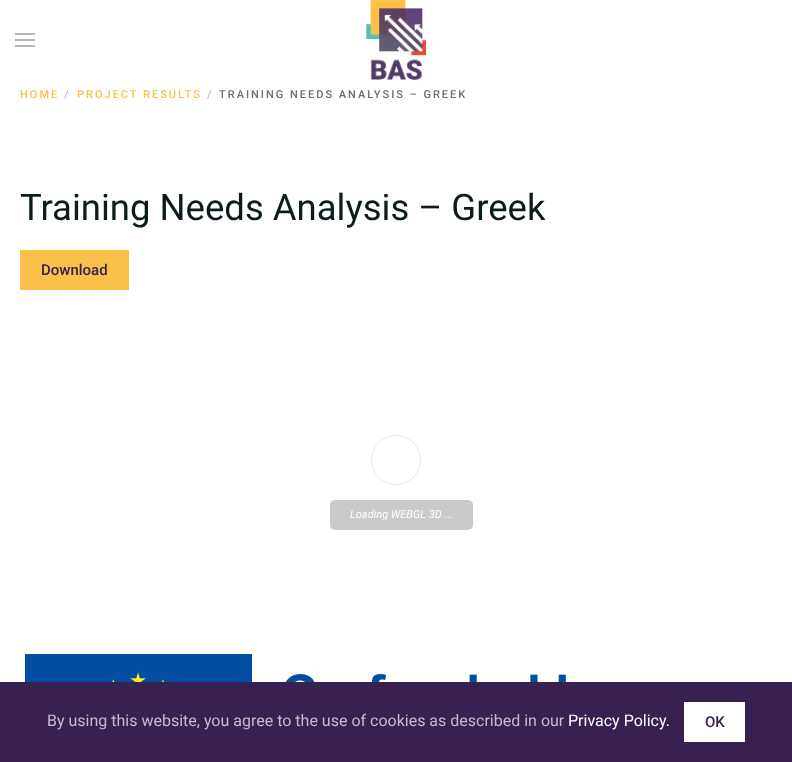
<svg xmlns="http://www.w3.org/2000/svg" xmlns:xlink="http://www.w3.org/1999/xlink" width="792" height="762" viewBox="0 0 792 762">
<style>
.cls-1{font:500 11px Roboto;letter-spacing:2px;fill:#fac047}
.cls-2{font:11px Roboto;fill:#b4b5ba}
.cls-3{font:500 11px Roboto;letter-spacing:2px;fill:#6c6d74}
.cls-4{font:36.5px Roboto;fill:#0c1c1c}
.cls-5{font:500 15px Roboto;fill:#382051}
.cls-6{font:italic 11px Roboto;fill:#ffffff}
.cls-7{font:16px Roboto;fill:#c3bccb}
.cls-8{font:16px Roboto;fill:#ffffff}
</style>
<rect width="100%" height="100%" fill="#ffffff"/>
<rect fill="#b4b5ba" x="15" y="33" width="20" height="2"/>
<rect fill="#b4b5ba" x="15" y="39" width="20" height="2"/>
<rect fill="#b4b5ba" x="15" y="45" width="20" height="2"/>
<image xlink:href="image0.png" x="366" y="0" width="61" height="80"/>
<rect fill="#fac047" x="20" y="250" width="109" height="40"/>
<circle fill="none" stroke="#eaeaea" cx="396" cy="460" r="24.5"/>
<rect fill="#cacaca" x="330" y="500" width="143" height="30" rx="5"/>
<image xlink:href="image1.png" x="25" y="654" width="541" height="28"/>
<rect fill="#382051" x="0" y="682" width="792" height="80"/>
<rect fill="#ffffff" x="684" y="702" width="61" height="40"/>
<text class="cls-1" x="20" y="98">HOME</text>
<text class="cls-2" x="64" y="98">/</text>
<text class="cls-1" x="77" y="98">PROJECT RESULTS</text>
<text class="cls-2" x="207" y="98">/</text>
<text class="cls-3" x="219" y="98">TRAINING NEEDS ANALYSIS – GREEK</text>
<text class="cls-4" x="20" y="220">Training Needs Analysis – Greek</text>
<text class="cls-5" x="41" y="275">Download</text>
<text class="cls-6" x="350" y="518">Loading WEBGL 3D ...</text>
<text class="cls-7" x="47" y="726">By using this website, you agree to the use of cookies as described in our</text>
<text class="cls-8" x="568" y="726">Privacy Policy.</text>
<text class="cls-5" x="705" y="727">OK</text>
</svg>
